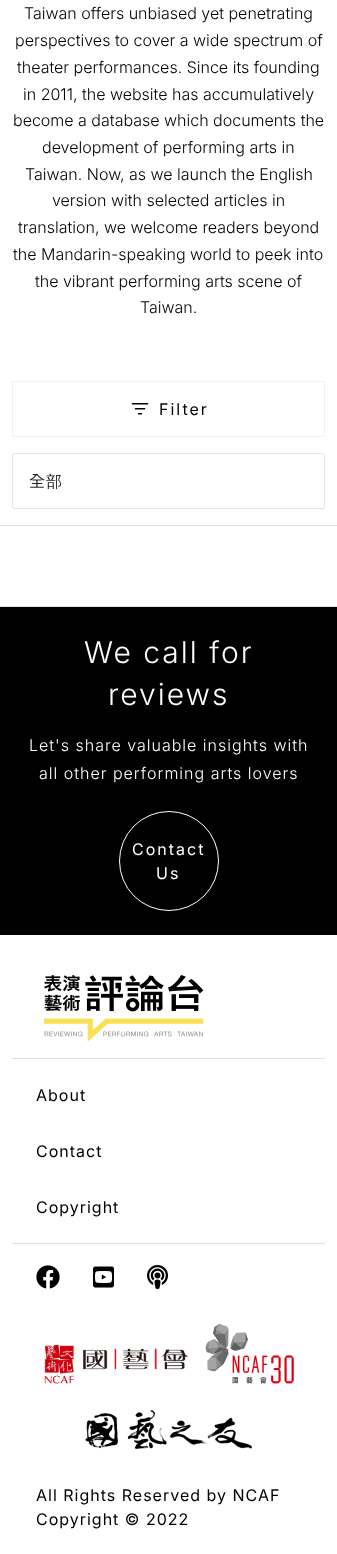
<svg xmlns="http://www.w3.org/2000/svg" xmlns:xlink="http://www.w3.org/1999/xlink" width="337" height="1554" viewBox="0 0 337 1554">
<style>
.cls-1{font:300 16px Inter;fill:#000000}
.cls-2{font:16px Inter;letter-spacing:2px;fill:#000000}
.cls-3{font:16px Noto Sans TC;letter-spacing:1px;fill:#212529}
.cls-4{font:500 16px WenQuanYi Zen Hei;letter-spacing:1px;fill:#212529}
.cls-5{font:300 30px Inter;letter-spacing:2px;fill:#ffffff}
.cls-6{font:300 16px Inter;letter-spacing:1px;fill:#ffffff}
.cls-7{font:16px Inter;letter-spacing:2px;fill:#ffffff}
.cls-8{font:16px Inter;letter-spacing:1px;fill:#000000}
</style>
<rect width="100%" height="100%" fill="#ffffff"/>
<rect fill="none" stroke="#f1f1f1" x="12.5" y="381.5" width="312" height="55"/>
<image xlink:href="image0.png" x="131" y="403" width="18" height="12"/>
<rect fill="none" stroke="#e5e5e5" x="12.5" y="453.5" width="312" height="55" rx="1.5"/>
<rect fill="#e0e0e0" x="0" y="525" width="337" height="1"/>
<rect fill="#e0e0e0" x="0" y="606" width="337" height="1"/>
<rect fill="#000000" x="0" y="607" width="337" height="328"/>
<circle fill="none" stroke="#ffffff" cx="169" cy="861" r="49.5"/>
<image xlink:href="image1.png" x="44" y="975" width="160" height="67"/>
<rect fill="#e0e0e0" x="12" y="1058" width="313" height="1"/>
<rect fill="#e0e0e0" x="12" y="1243" width="313" height="1"/>
<image xlink:href="image2.png" x="36" y="1265" width="24" height="24"/>
<image xlink:href="image3.png" x="93" y="1266" width="21" height="22"/>
<image xlink:href="image4.png" x="147" y="1265" width="21" height="24"/>
<image xlink:href="image5.png" x="44" y="1323" width="250" height="61"/>
<image xlink:href="image6.png" x="85" y="1410" width="167" height="39"/>
<text class="cls-1" x="24" y="19">Taiwan offers unbiased yet penetrating</text>
<text class="cls-1" x="15" y="46">perspectives to cover a wide spectrum of</text>
<text class="cls-1" x="17" y="73">theater performances. Since its founding</text>
<text class="cls-1" x="23" y="100">in 2011, the website has accumulatively</text>
<text class="cls-1" x="13" y="126">become a database which documents the</text>
<text class="cls-1" x="42" y="153">development of performing arts in</text>
<text class="cls-1" x="25" y="180">Taiwan. Now, as we launch the English</text>
<text class="cls-1" x="52" y="206">version with selected articles in</text>
<text class="cls-1" x="18" y="233">translation, we welcome readers beyond</text>
<text class="cls-1" x="13" y="260">the Mandarin-speaking world to peek into</text>
<text class="cls-1" x="35" y="287">the vibrant performing arts scene of</text>
<text class="cls-1" x="140" y="313">Taiwan.</text>
<text class="cls-2" x="159" y="415">Filter</text>
<text class="cls-3" x="29" y="487">全</text>
<text class="cls-4" x="46" y="487">部</text>
<text class="cls-5" x="84" y="663">We call for</text>
<text class="cls-5" x="108" y="705">reviews</text>
<text class="cls-6" x="29" y="751">Let's share valuable insights with</text>
<text class="cls-6" x="39" y="779">all other performing arts lovers</text>
<text class="cls-7" x="132" y="855">Contact</text>
<text class="cls-7" x="156" y="879">Us</text>
<text class="cls-8" x="36" y="1101">About</text>
<text class="cls-8" x="36" y="1157">Contact</text>
<text class="cls-8" x="36" y="1213">Copyright</text>
<text class="cls-8"><tspan x="36" y="1501">All Rights Reserved by NCAF</tspan><tspan x="36" y="1525">Copyright © 2022</tspan></text>
</svg>
